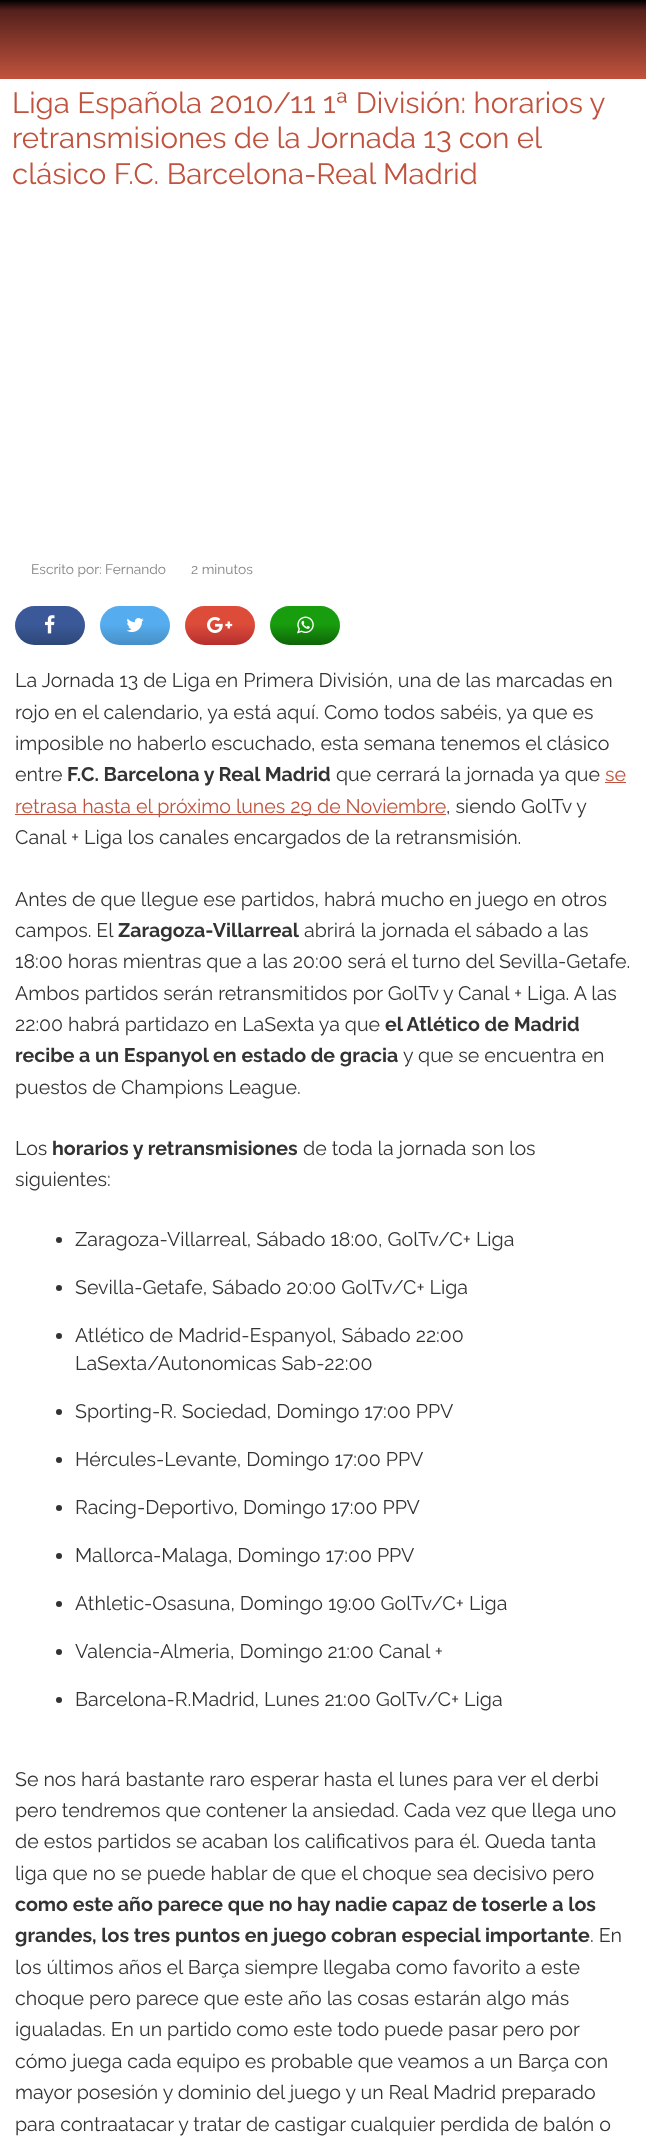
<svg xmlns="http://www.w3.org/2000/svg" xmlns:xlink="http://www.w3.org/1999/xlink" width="646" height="2141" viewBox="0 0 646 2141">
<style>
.cls-1{font:29.4px Raleway;fill:#c1533e}
.cls-2{font:13.75px Raleway;fill:#828282}
.cls-3{font:19.6px Raleway;fill:#333333}
.cls-4{font:bold 19.6px Raleway;fill:#333333}
.cls-5{font:19.6px Raleway;fill:#c1533e}
</style>
<defs>
<linearGradient id="g1" gradientUnits="userSpaceOnUse" x1="323" y1="0" x2="323" y2="79"><stop offset="0" stop-color="#000000"/><stop offset="0.13" stop-color="#54201b"/><stop offset="1" stop-color="#c1533e"/></linearGradient>
<linearGradient id="g2" gradientUnits="userSpaceOnUse" x1="50" y1="606" x2="50" y2="645"><stop offset="0" stop-color="#3b5998"/><stop offset="0.48" stop-color="#3b5998"/><stop offset="1" stop-color="#2e4777"/></linearGradient>
<linearGradient id="g3" gradientUnits="userSpaceOnUse" x1="135" y1="606" x2="135" y2="645"><stop offset="0" stop-color="#55acee"/><stop offset="0.48" stop-color="#55acee"/><stop offset="1" stop-color="#478fc6"/></linearGradient>
<linearGradient id="g4" gradientUnits="userSpaceOnUse" x1="220" y1="606" x2="220" y2="645"><stop offset="0" stop-color="#dd4b39"/><stop offset="0.47" stop-color="#dd4b39"/><stop offset="1" stop-color="#b52f2f"/></linearGradient>
<linearGradient id="g5" gradientUnits="userSpaceOnUse" x1="305" y1="606" x2="305" y2="645"><stop offset="0" stop-color="#189d0e"/><stop offset="0.47" stop-color="#189d0e"/><stop offset="1" stop-color="#0e6308"/></linearGradient>
</defs>
<rect width="100%" height="100%" fill="#ffffff"/>
<rect fill="url(#g1)" x="0" y="0" width="646" height="79"/>
<rect fill="url(#g2)" x="15" y="606" width="70" height="39" rx="19.5"/>
<image xlink:href="image0.png" x="45" y="615" width="10" height="19"/>
<rect fill="url(#g3)" x="100" y="606" width="70" height="39" rx="19.5"/>
<image xlink:href="image1.png" x="126" y="618" width="18" height="14"/>
<rect fill="url(#g4)" x="185" y="606" width="70" height="39" rx="19.5"/>
<image xlink:href="image2.png" x="207" y="617" width="26" height="16"/>
<rect fill="url(#g5)" x="270" y="606" width="70" height="39" rx="19.5"/>
<image xlink:href="image3.png" x="297" y="616" width="17" height="18"/>
<rect fill="#c1533e" x="605" y="782" width="21" height="1"/>
<rect fill="#c1533e" x="15" y="814" width="431" height="1"/>
<circle fill="#333333" cx="59" cy="1240" r="3"/>
<circle fill="#333333" cx="59" cy="1288" r="3"/>
<circle fill="#333333" cx="59" cy="1336" r="3"/>
<circle fill="#333333" cx="59" cy="1412" r="3"/>
<circle fill="#333333" cx="59" cy="1460" r="3"/>
<circle fill="#333333" cx="59" cy="1508" r="3"/>
<circle fill="#333333" cx="59" cy="1556" r="3"/>
<circle fill="#333333" cx="59" cy="1604" r="3"/>
<circle fill="#333333" cx="59" cy="1652" r="3"/>
<circle fill="#333333" cx="59" cy="1700" r="3"/>
<text class="cls-1"><tspan x="12" y="113">Liga Española 2010/11 1ª División: horarios y</tspan><tspan x="12" y="148" word-spacing="-0.25">retransmisiones de la Jornada 13 con el</tspan><tspan x="12" y="184">clásico F.C. Barcelona-Real Madrid</tspan></text>
<text class="cls-2" x="31" y="574">Escrito por: Fernando</text>
<text class="cls-2" x="191" y="574">2 minutos</text>
<text class="cls-3"><tspan x="15" y="687">La Jornada 13 de Liga en Primera División, una de las marcadas en</tspan><tspan x="15" y="719">rojo en el calendario, ya está aquí. Como todos sabéis, ya que es</tspan><tspan x="15" y="750">imposible no haberlo escuchado, esta semana tenemos el clásico</tspan><tspan x="15" y="781">entre</tspan></text>
<text class="cls-4" x="67" y="781">F.C. Barcelona y Real Madrid</text>
<text class="cls-3" x="336" y="781">que cerrará la jornada ya que</text>
<text class="cls-5" x="605" y="781">se</text>
<text class="cls-5" x="15" y="813">retrasa hasta el próximo lunes 29 de Noviembre</text>
<text class="cls-3" x="446" y="813">, siendo GolTv y</text>
<text class="cls-3" x="15" y="844">Canal + Liga los canales encargados de la retransmisión.</text>
<text class="cls-3"><tspan x="15" y="906">Antes de que llegue ese partidos, habrá mucho en juego en otros</tspan><tspan x="15" y="937">campos. El</tspan></text>
<text class="cls-4" x="118" y="937">Zaragoza-Villarreal</text>
<text class="cls-3" x="304" y="937">abrirá la jornada el sábado a las</text>
<text class="cls-3"><tspan x="15" y="968">18:00 horas mientras que a las 20:00 será el turno del Sevilla-Getafe.</tspan><tspan x="15" y="1000">Ambos partidos serán retransmitidos por GolTv y Canal + Liga. A las</tspan><tspan x="15" y="1031">22:00 habrá partidazo en LaSexta ya que</tspan></text>
<text class="cls-4" x="385" y="1031">el Atlético de Madrid</text>
<text class="cls-4" x="15" y="1062">recibe a un Espanyol en estado de gracia</text>
<text class="cls-3" x="403" y="1062">y que se encuentra en</text>
<text class="cls-3" x="15" y="1094">puestos de Champions League.</text>
<text class="cls-3" x="15" y="1155">Los</text>
<text class="cls-4" x="52" y="1155">horarios y retransmisiones</text>
<text class="cls-3" x="303" y="1155">de toda la jornada son los</text>
<text class="cls-3" x="15" y="1186">siguientes:</text>
<text class="cls-3" x="75" y="1246">Zaragoza-Villarreal, Sábado 18:00, GolTv/C+ Liga</text>
<text class="cls-3" x="75" y="1294">Sevilla-Getafe, Sábado 20:00 GolTv/C+ Liga</text>
<text class="cls-3"><tspan x="75" y="1342">Atlético de Madrid-Espanyol, Sábado 22:00</tspan><tspan x="75" y="1370">LaSexta/Autonomicas Sab-22:00</tspan></text>
<text class="cls-3" x="75" y="1418">Sporting-R. Sociedad, Domingo 17:00 PPV</text>
<text class="cls-3" x="75" y="1466">Hércules-Levante, Domingo 17:00 PPV</text>
<text class="cls-3" x="75" y="1514">Racing-Deportivo, Domingo 17:00 PPV</text>
<text class="cls-3" x="75" y="1562">Mallorca-Malaga, Domingo 17:00 PPV</text>
<text class="cls-3" x="75" y="1610">Athletic-Osasuna, Domingo 19:00 GolTv/C+ Liga</text>
<text class="cls-3" x="75" y="1658">Valencia-Almeria, Domingo 21:00 Canal +</text>
<text class="cls-3" x="75" y="1706">Barcelona-R.Madrid, Lunes 21:00 GolTv/C+ Liga</text>
<text class="cls-3"><tspan x="15" y="1786">Se nos hará bastante raro esperar hasta el lunes para ver el derbi</tspan><tspan x="15" y="1817">pero tendremos que contener la ansiedad. Cada vez que llega uno</tspan><tspan x="15" y="1848">de estos partidos se acaban los calificativos para él. Queda tanta</tspan><tspan x="15" y="1880">liga que no se puede hablar de que el choque sea decisivo pero</tspan></text>
<text class="cls-4"><tspan x="15" y="1911">como este año parece que no hay nadie capaz de toserle a los</tspan><tspan x="15" y="1942">grandes, los tres puntos en juego cobran especial importante</tspan></text>
<text class="cls-3" x="590" y="1942">. En</text>
<text class="cls-3"><tspan x="15" y="1974">los últimos años el Barça siempre llegaba como favorito a este</tspan><tspan x="15" y="2005">choque pero parece que este año las cosas estarán algo más</tspan><tspan x="15" y="2036">igualadas. En un partido como este todo puede pasar pero por</tspan><tspan x="15" y="2068">cómo juega cada equipo es probable que veamos a un Barça con</tspan><tspan x="15" y="2099">mayor posesión y dominio del juego y un Real Madrid preparado</tspan><tspan x="15" y="2131">para contraatacar y tratar de castigar cualquier perdida de balón o</tspan></text>
</svg>
